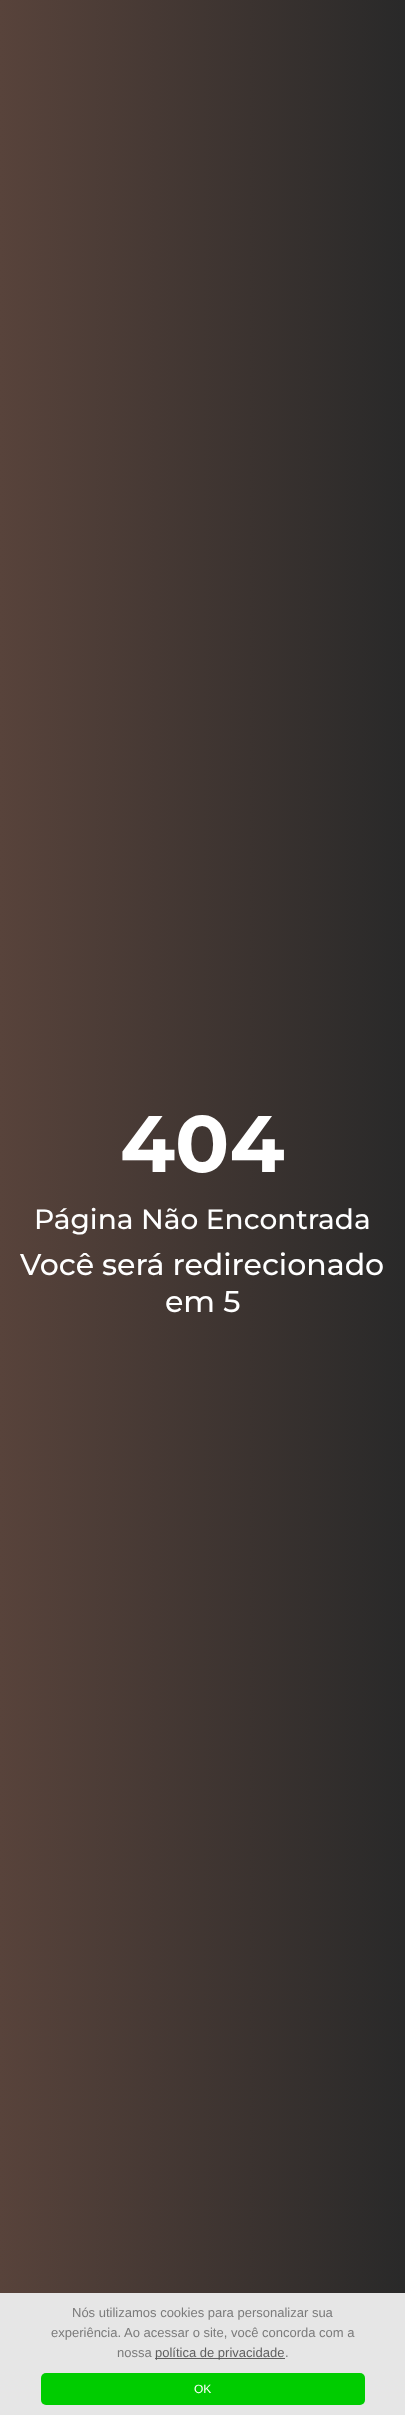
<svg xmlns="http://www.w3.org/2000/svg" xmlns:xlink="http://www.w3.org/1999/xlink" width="405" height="2415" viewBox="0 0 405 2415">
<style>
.cls-1{font:bold 80px Montserrat;fill:#ffffff}
.cls-2{font:500 28px Montserrat;fill:#ffffff}
.cls-3{font:500 30px Montserrat;fill:#ffffff}
.cls-4{font:13px Liberation Sans;fill:#7b7b7b}
.cls-5{font:13px Liberation Sans;fill:#5f5f5f}
.cls-6{font:12px Liberation Sans;fill:#ffffff}
</style>
<defs>
<linearGradient id="g1" gradientUnits="userSpaceOnUse" x1="0" y1="1208" x2="405" y2="1208"><stop offset="0" stop-color="#58433b"/><stop offset="1" stop-color="#292929"/></linearGradient>
</defs>
<rect width="100%" height="100%" fill="#ffffff"/>
<rect fill="url(#g1)" x="0" y="0" width="405" height="2293"/>
<rect fill="#e6e6e6" x="0" y="2293" width="405" height="122"/>
<rect fill="#5f5f5f" x="155" y="2358" width="130" height="1"/>
<rect fill="#00cc00" x="41" y="2373" width="324" height="32" rx="5"/>
<text class="cls-1" x="120" y="1172">404</text>
<text class="cls-2" x="34" y="1229">Página Não Encontrada</text>
<text class="cls-3" x="20" y="1275">Você será redirecionado</text>
<text class="cls-3" x="165" y="1312">em 5</text>
<text class="cls-4" x="72" y="2317">Nós utilizamos cookies para personalizar sua</text>
<text class="cls-4" x="51" y="2337">experiência. Ao acessar o site, você concorda com a</text>
<text class="cls-4" x="117" y="2357">nossa</text>
<text class="cls-5" x="155" y="2357">política de privacidade</text>
<text class="cls-4" x="285" y="2357">.</text>
<text class="cls-6" x="194" y="2393">OK</text>
</svg>
